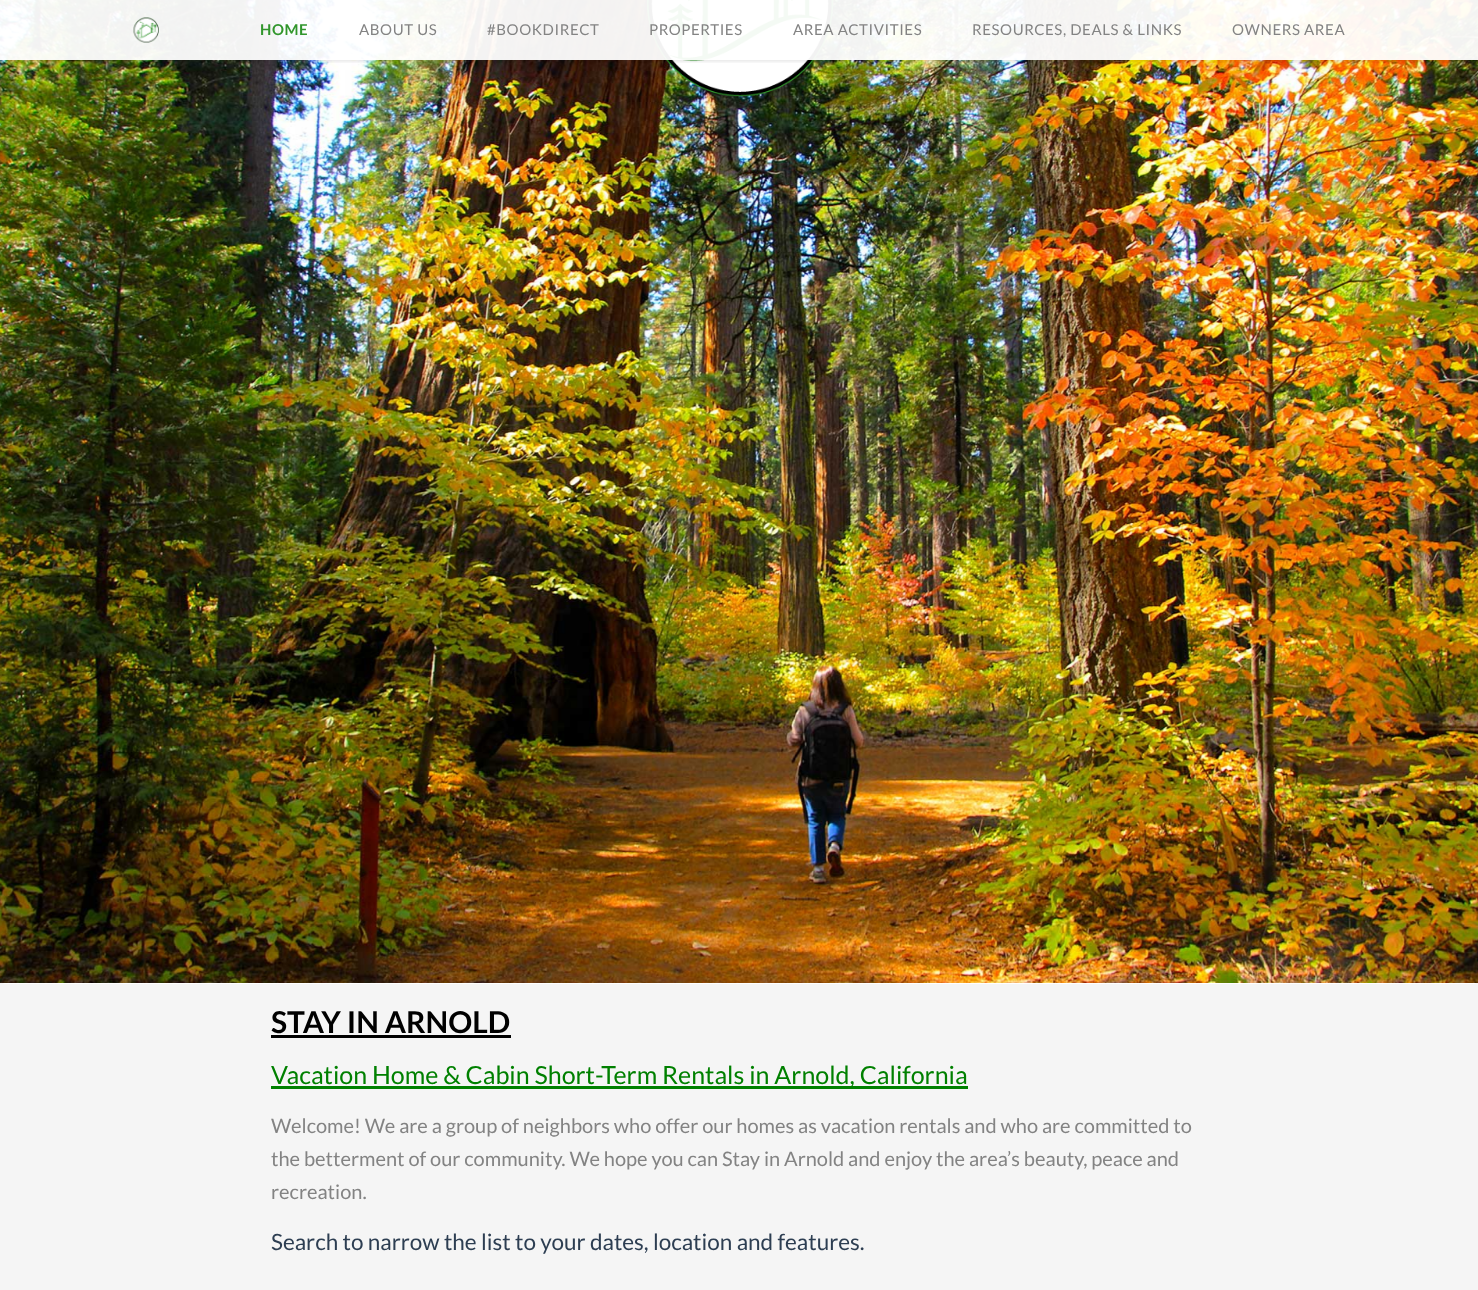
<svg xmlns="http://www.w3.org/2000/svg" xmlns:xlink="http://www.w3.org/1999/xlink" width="1478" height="1290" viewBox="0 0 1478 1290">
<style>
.cls-1{font:bold 15px Lato;letter-spacing:0.6px;fill:#31962c}
.cls-2{font:15px Lato;letter-spacing:0.6px;fill:#838383}
.cls-3{font:bold 30px Lato;fill:#000000}
.cls-4{font:25px Lato;fill:#008000}
.cls-5{font:20px Lato;fill:#838383}
.cls-6{font:22.5px Lato;fill:#2d3e52}
</style>
<defs>
<clipPath id="clip1"><rect x="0" y="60" width="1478" height="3"/></clipPath>
</defs>
<rect width="100%" height="100%" fill="#f5f5f5"/>
<rect fill="#ffffff" x="0" y="-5" width="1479" height="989" rx="5"/>
<image xlink:href="image2.png" x="0" y="0" width="1478" height="983"/>
<image xlink:href="image1.png" x="647" y="0" width="186" height="97"/>
<g clip-path="url(#clip1)">
<rect fill="#000000" fill-opacity="0.12" filter="blur(2px)" x="0" y="1" width="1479" height="60"/>
</g>
<rect fill="#ffffff" fill-opacity="0.95" x="0" y="0" width="1478" height="60"/>
<image xlink:href="image0.png" x="133" y="17" width="26" height="26"/>
<rect fill="#000000" x="271" y="1035" width="240" height="3"/>
<rect fill="#008000" x="271" y="1086" width="697" height="3"/>
<text class="cls-1" x="260" y="35">HOME</text>
<text class="cls-2" x="359" y="35">ABOUT US</text>
<text class="cls-2" x="487" y="35">#BOOKDIRECT</text>
<text class="cls-2" x="649" y="35">PROPERTIES</text>
<text class="cls-2" x="793" y="35">AREA ACTIVITIES</text>
<text class="cls-2" x="972" y="35">RESOURCES, DEALS &amp; LINKS</text>
<text class="cls-2" x="1232" y="35">OWNERS AREA</text>
<text class="cls-3" x="271" y="1033">STAY IN ARNOLD</text>
<text class="cls-4" x="271" y="1084">Vacation Home &amp; Cabin Short-Term Rentals in Arnold, California</text>
<text class="cls-5"><tspan x="271" y="1133">Welcome! We are a group of neighbors who offer our homes as vacation rentals and who are committed to</tspan><tspan x="271" y="1166">the betterment of our community. We hope you can Stay in Arnold and enjoy the area’s beauty, peace and</tspan><tspan x="271" y="1199">recreation.</tspan></text>
<text class="cls-6" x="271" y="1250">Search to narrow the list to your dates, location and features.</text>
</svg>
